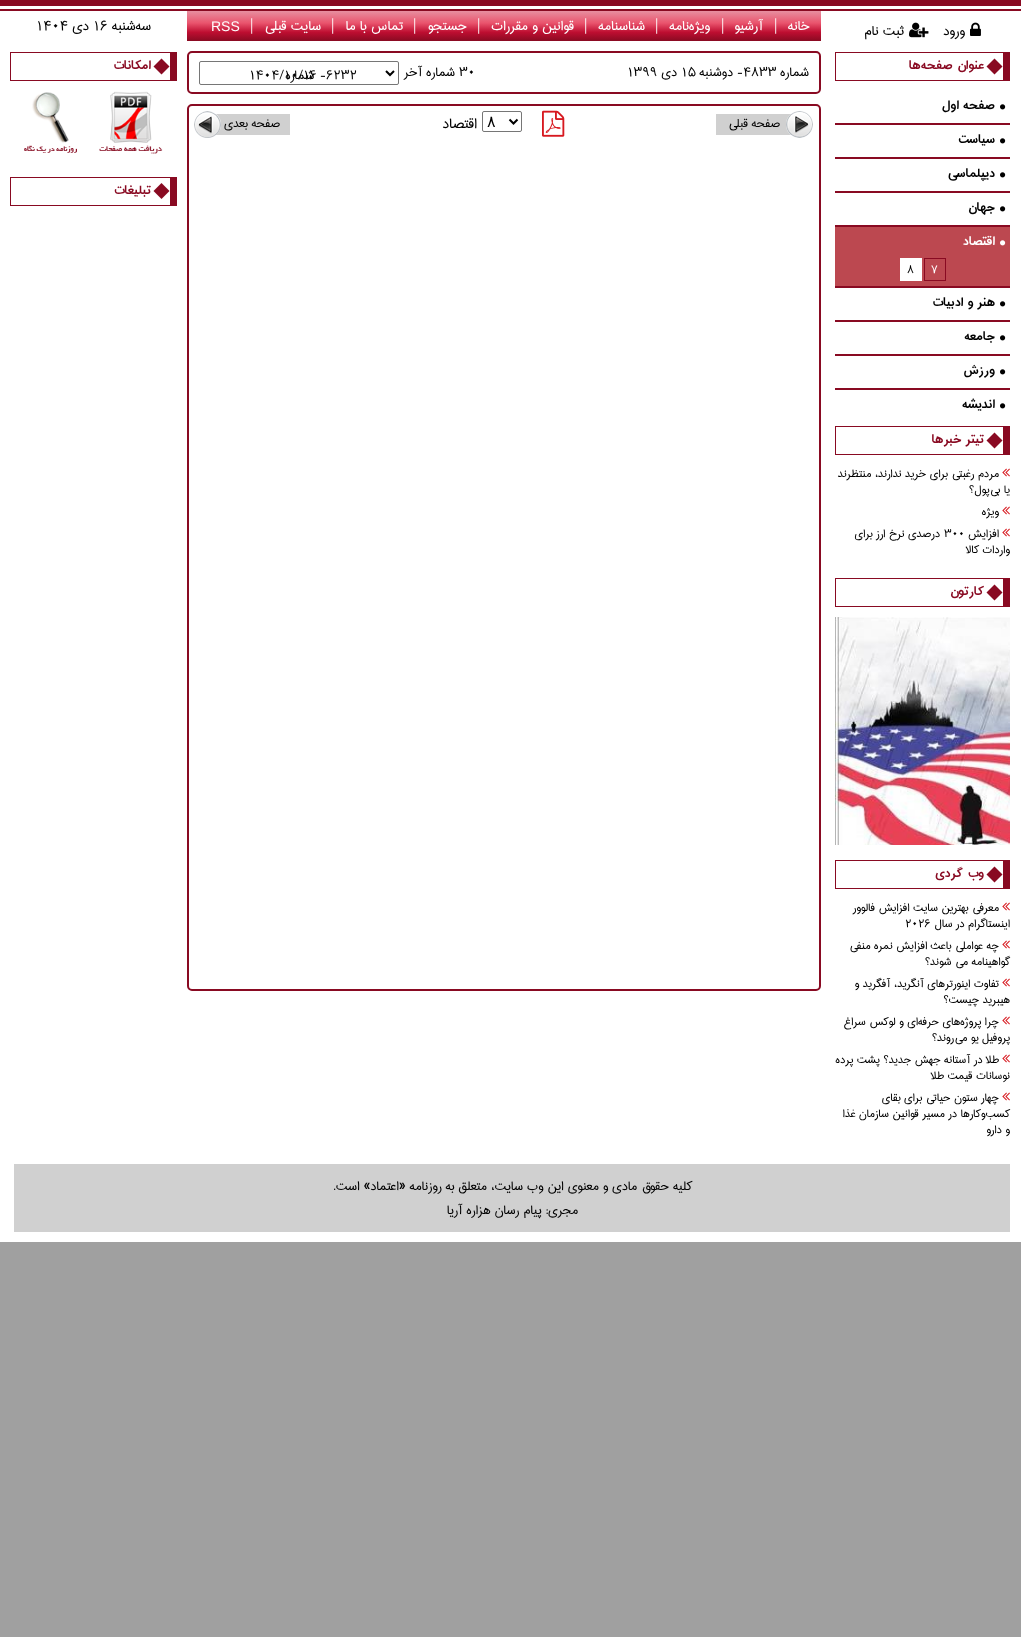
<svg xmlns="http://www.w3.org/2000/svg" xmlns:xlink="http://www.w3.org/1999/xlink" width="1021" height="1637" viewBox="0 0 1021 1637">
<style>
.cls-1{font:17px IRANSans;direction:rtl;fill:#000000}
.cls-2{font:bold 15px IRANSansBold;direction:rtl;fill:#890a22}
.cls-3{font:bold 15px IRANSansBold;direction:rtl;fill:#000000}
.cls-4{font:bold 15px IRANSansBold;direction:rtl;fill:#ffffff}
.cls-5{font:14px IRANSans;fill:#ffffff}
.cls-6{font:14px IRANSans;fill:#000000}
.cls-7{font:14px IRANSans;direction:rtl;fill:#000000}
.cls-8{font:17px IRANSans;direction:rtl;fill:#ffffff}
.cls-9{font:17px Liberation Serif;fill:#ffffff}
.cls-10{font:14px Liberation Sans;fill:#ffffff}
.cls-11{font:16px IRANSans;direction:rtl;fill:#000000}
.cls-12{font:16px IRANSans;fill:#000000}
.cls-13{font:15px IRANSans;direction:rtl;fill:#000000}
.cls-14{font:16px DejaVu Sans;fill:#000000}
.cls-15{font:18px IRANSans;direction:rtl;fill:#000000}
.cls-16{font:17px IRANSans;fill:#000000}
</style>
<defs>
<linearGradient id="g1" gradientUnits="userSpaceOnUse" x1="504" y1="11" x2="504" y2="41"><stop offset="0" stop-color="#e78fa0"/><stop offset="0.4" stop-color="#ea546d"/><stop offset="0.71" stop-color="#be0e31"/><stop offset="1" stop-color="#890a22"/></linearGradient>
</defs>
<rect width="100%" height="100%" fill="#a0a0a0"/>
<rect fill="#ffffff" x="0" y="6" width="1021" height="1236"/>
<rect fill="#890a22" x="0" y="0" width="1021" height="6"/>
<rect fill="#890a22" x="0" y="9" width="1021" height="2"/>
<image xlink:href="image0.png" x="970" y="22" width="11" height="14"/>
<image xlink:href="image1.png" x="909" y="22" width="20" height="16"/>
<rect fill="#890a22" x="835" y="52" width="175" height="1"/>
<rect fill="#890a22" x="1003" y="52" width="7" height="29"/>
<rect fill="#890a22" x="835" y="80" width="175" height="1"/>
<rect fill="#890a22" x="835" y="52" width="1" height="29"/>
<path fill="#890a22" d="M994.5 58.5L1002.5 66.5L994.5 74.5L986.5 66.5Z"/>
<rect fill="#890a22" x="835" y="123" width="175" height="2"/>
<image xlink:href="image2.png" x="1000" y="104" width="6" height="6"/>
<rect fill="#890a22" x="835" y="157" width="175" height="2"/>
<image xlink:href="image2.png" x="1000" y="138" width="6" height="6"/>
<rect fill="#890a22" x="835" y="191" width="175" height="2"/>
<image xlink:href="image2.png" x="1000" y="172" width="6" height="6"/>
<rect fill="#890a22" x="835" y="225" width="175" height="2"/>
<image xlink:href="image2.png" x="1000" y="206" width="6" height="6"/>
<rect fill="#bc4850" x="835" y="227" width="175" height="59"/>
<rect fill="#890a22" x="835" y="286" width="175" height="2"/>
<image xlink:href="image3.png" x="1000" y="240" width="6" height="6"/>
<rect fill="none" stroke="#890a22" x="924.5" y="258.5" width="21" height="22"/>
<rect fill="#ffffff" x="900" y="258" width="22" height="23"/>
<rect fill="#890a22" x="835" y="320" width="175" height="2"/>
<image xlink:href="image2.png" x="1000" y="301" width="6" height="6"/>
<rect fill="#890a22" x="835" y="354" width="175" height="2"/>
<image xlink:href="image2.png" x="1000" y="335" width="6" height="6"/>
<rect fill="#890a22" x="835" y="388" width="175" height="2"/>
<image xlink:href="image2.png" x="1000" y="369" width="6" height="6"/>
<image xlink:href="image2.png" x="1000" y="403" width="6" height="6"/>
<rect fill="#890a22" x="835" y="426" width="175" height="1"/>
<rect fill="#890a22" x="1003" y="426" width="7" height="29"/>
<rect fill="#890a22" x="835" y="454" width="175" height="1"/>
<rect fill="#890a22" x="835" y="426" width="1" height="29"/>
<path fill="#890a22" d="M994.5 432.5L1002.5 440.5L994.5 448.5L986.5 440.5Z"/>
<image xlink:href="image4.png" x="1002" y="468" width="8" height="9"/>
<image xlink:href="image4.png" x="1002" y="506" width="8" height="9"/>
<image xlink:href="image4.png" x="1002" y="528" width="8" height="9"/>
<rect fill="#890a22" x="835" y="578" width="175" height="1"/>
<rect fill="#890a22" x="1003" y="578" width="7" height="29"/>
<rect fill="#890a22" x="835" y="606" width="175" height="1"/>
<rect fill="#890a22" x="835" y="578" width="1" height="29"/>
<path fill="#890a22" d="M994.5 584.5L1002.5 592.5L994.5 600.5L986.5 592.5Z"/>
<image xlink:href="image5.png" x="835" y="617" width="175" height="228"/>
<rect fill="#890a22" x="835" y="860" width="175" height="1"/>
<rect fill="#890a22" x="1003" y="860" width="7" height="29"/>
<rect fill="#890a22" x="835" y="888" width="175" height="1"/>
<rect fill="#890a22" x="835" y="860" width="1" height="29"/>
<path fill="#890a22" d="M994.5 866.5L1002.5 874.5L994.5 882.5L986.5 874.5Z"/>
<image xlink:href="image4.png" x="1002" y="902" width="8" height="9"/>
<image xlink:href="image4.png" x="1002" y="940" width="8" height="9"/>
<image xlink:href="image4.png" x="1002" y="978" width="8" height="9"/>
<image xlink:href="image4.png" x="1002" y="1016" width="8" height="9"/>
<image xlink:href="image4.png" x="1002" y="1054" width="8" height="9"/>
<image xlink:href="image4.png" x="1002" y="1092" width="8" height="9"/>
<rect fill="url(#g1)" x="187" y="11" width="634" height="30"/>
<rect fill="none" stroke="#890a22" stroke-width="2" x="188" y="52" width="632" height="41" rx="4"/>
<rect fill="none" stroke="#767676" x="199.5" y="61.5" width="199" height="23" rx="1.5"/>
<path fill="none" stroke="#000000" stroke-width="2" d="M386 71L390 75L394 71"/>
<rect fill="none" stroke="#890a22" stroke-width="2" x="188" y="105" width="632" height="885" rx="4"/>
<rect fill="#d0d0d0" x="716" y="114" width="75" height="21"/>
<image xlink:href="image6.png" x="786" y="111" width="27" height="27"/>
<image xlink:href="image7.png" x="542" y="110" width="23" height="27"/>
<rect fill="none" stroke="#767676" x="482.5" y="111.5" width="39" height="20" rx="1.5"/>
<path fill="none" stroke="#000000" stroke-width="2" d="M509.5 119.5L513.5 123.5L517.5 119.5"/>
<rect fill="#d0d0d0" x="216" y="114" width="74" height="21"/>
<image xlink:href="image8.png" x="194" y="111" width="27" height="27"/>
<rect fill="#890a22" x="10" y="52" width="167" height="1"/>
<rect fill="#890a22" x="170" y="52" width="7" height="29"/>
<rect fill="#890a22" x="10" y="80" width="167" height="1"/>
<rect fill="#890a22" x="10" y="52" width="1" height="29"/>
<path fill="#890a22" d="M161.5 58.5L169.5 66.5L161.5 74.5L153.5 66.5Z"/>
<image xlink:href="image9.png" x="99" y="91" width="64" height="63"/>
<image xlink:href="image10.png" x="24" y="92" width="53" height="61"/>
<rect fill="#890a22" x="10" y="177" width="167" height="1"/>
<rect fill="#890a22" x="170" y="177" width="7" height="29"/>
<rect fill="#890a22" x="10" y="205" width="167" height="1"/>
<rect fill="#890a22" x="10" y="177" width="1" height="29"/>
<path fill="#890a22" d="M161.5 183L169.5 191L161.5 199L153.5 191Z"/>
<rect fill="#d0d0d0" x="14" y="1164" width="996" height="68"/>
<text class="cls-1" x="965" y="35">ورود</text>
<text class="cls-1" x="904" y="35">ثبت نام</text>
<text class="cls-2" x="984" y="69">عنوان صفحه‌ها</text>
<text class="cls-3" x="995" y="109">صفحه اول</text>
<text class="cls-3" x="995" y="143">سیاست</text>
<text class="cls-3" x="995" y="177">دیپلماسی</text>
<text class="cls-3" x="995" y="211">جهان</text>
<text class="cls-4" x="995" y="245">اقتصاد</text>
<text class="cls-5" x="931" y="273">7</text>
<text class="cls-6" x="907" y="273">8</text>
<text class="cls-3" x="995" y="306">هنر و ادبيات</text>
<text class="cls-3" x="995" y="340">جامعه</text>
<text class="cls-3" x="995" y="374">ورزش</text>
<text class="cls-3" x="995" y="408">انديشه</text>
<text class="cls-2" x="984" y="443">تیتر خبرها</text>
<text class="cls-7" x="999" y="477">مردم رغبتي براي خريد ندارند، منتظرند</text>
<text class="cls-7" x="1010" y="493">يا بي‌پول؟</text>
<text class="cls-7"><tspan x="999" y="515">ويژه</tspan><tspan x="999" y="537">افزايش</tspan></text>
<text class="cls-6" x="944" y="537">300</text>
<text class="cls-7" x="940" y="537">درصدي نرخ ارز براي</text>
<text class="cls-7" x="1010" y="553">واردات كالا</text>
<text class="cls-2" x="984" y="595">کارتون</text>
<text class="cls-2" x="984" y="877">وب گردی</text>
<text class="cls-7" x="999" y="911">معرفی بهترین سایت افزایش فالوور</text>
<text class="cls-7" x="1010" y="927">اینستاگرام در سال</text>
<text class="cls-6" x="905" y="927">2026</text>
<text class="cls-7" x="999" y="949">چه عواملی باعث افزایش نمره منفی</text>
<text class="cls-7" x="1010" y="965">گواهینامه می شوند؟</text>
<text class="cls-7" x="999" y="987">تفاوت اینورترهای آنگرید، آفگرید و</text>
<text class="cls-7" x="1010" y="1003">هیبرید چیست؟</text>
<text class="cls-7" x="999" y="1025">چرا پروژه‌های حرفه‌ای و لوکس سراغ</text>
<text class="cls-7" x="1010" y="1041">پروفیل یو می‌روند؟</text>
<text class="cls-7" x="999" y="1063">طلا در آستانه جهش جدید؟ پشت پرده</text>
<text class="cls-7" x="1010" y="1079">نوسانات قیمت طلا</text>
<text class="cls-7" x="999" y="1101">چهار ستون حیاتی برای بقای</text>
<text class="cls-7"><tspan x="1010" y="1117">کسب‌وکارها در مسیر قوانین سازمان غذا</tspan><tspan x="1010" y="1133">و دارو</tspan></text>
<text class="cls-8" x="810" y="30">خانه</text>
<text class="cls-9" x="774" y="30">|</text>
<text class="cls-8" x="763" y="30">آرشیو</text>
<text class="cls-9" x="721" y="30">|</text>
<text class="cls-8" x="710" y="30">ویژه‌نامه</text>
<text class="cls-9" x="655" y="30">|</text>
<text class="cls-8" x="645" y="30">شناسنامه</text>
<text class="cls-9" x="584" y="30">|</text>
<text class="cls-8" x="574" y="30">قوانین و مقررات</text>
<text class="cls-9" x="477" y="30">|</text>
<text class="cls-8" x="467" y="30">جستجو</text>
<text class="cls-9" x="413" y="30">|</text>
<text class="cls-8" x="403" y="30">تماس با ما</text>
<text class="cls-9" x="331" y="30">|</text>
<text class="cls-8" x="321" y="30">سایت قبلی</text>
<text class="cls-9" x="250" y="30">|</text>
<text class="cls-10" x="211" y="31">RSS</text>
<text class="cls-11" x="809" y="76">شماره</text>
<text class="cls-12" x="737" y="76">-4833</text>
<text class="cls-11" x="733" y="76">دوشنبه</text>
<text class="cls-12" x="681" y="76">15</text>
<text class="cls-11" x="677" y="76">دي</text>
<text class="cls-12" x="627" y="76">1399</text>
<text class="cls-12" x="459" y="76">30</text>
<text class="cls-11" x="455" y="76">شماره آخر</text>
<text class="cls-12" x="326" y="79">6232</text>
<text class="cls-12" x="249" y="79">1404/10/16</text>
<text class="cls-11" x="326" y="79" word-spacing="2">- شماره</text>
<text class="cls-13" x="780" y="127">صفحه قبلی</text>
<text class="cls-14" x="487" y="127">۸</text>
<text class="cls-15" x="477" y="128">اقتصاد</text>
<text class="cls-13" x="280" y="127">صفحه بعدی</text>
<text class="cls-1" x="151" y="30">سه‌شنبه</text>
<text class="cls-16" x="93" y="30">16</text>
<text class="cls-1" x="89" y="30">دي</text>
<text class="cls-16" x="36" y="30">1404</text>
<text class="cls-2" x="151" y="69">امکانات</text>
<text class="cls-2" x="151" y="194">تبلیغات</text>
<text class="cls-11" x="692" y="1190">كلیه حقوق مادی و معنوی این وب سایت، متعلق به روزنامه «اعتماد» است.</text>
<text class="cls-11" x="578" y="1214">مجری: پیام رسان هزاره آریا</text>
</svg>
